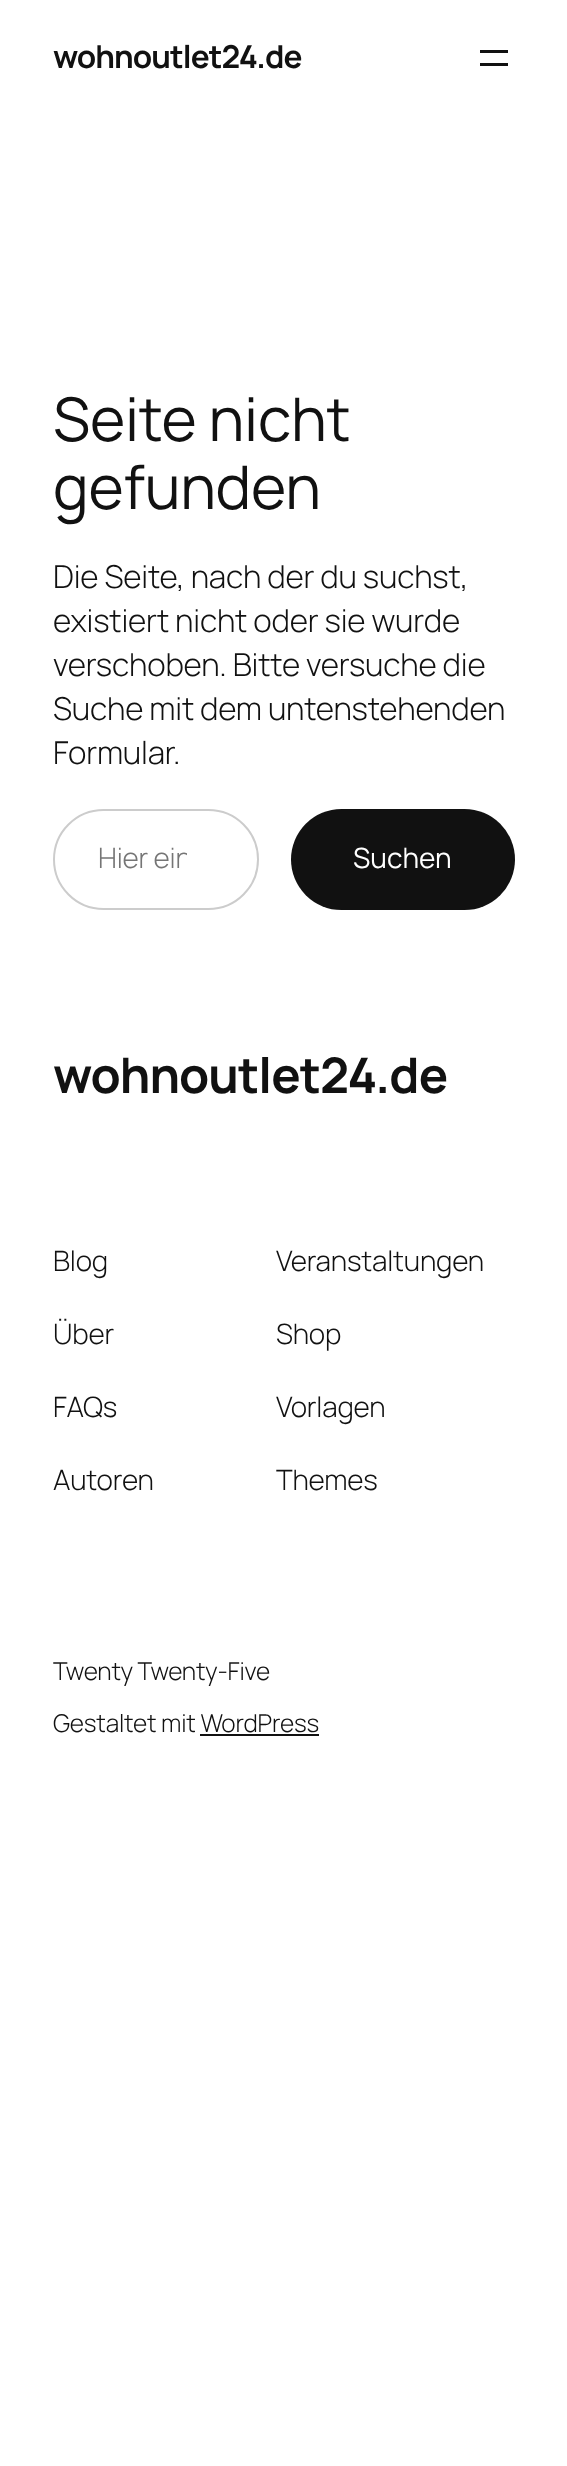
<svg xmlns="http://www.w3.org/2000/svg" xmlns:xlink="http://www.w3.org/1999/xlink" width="567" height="2466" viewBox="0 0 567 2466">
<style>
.cls-1{font:bold 31.5px Manrope;letter-spacing:-0.9px;fill:#111111}
.cls-2{font:60.25px Manrope;letter-spacing:-0.2px;fill:#111111}
.cls-3{font:300 31.5px Manrope;letter-spacing:-0.2px;fill:#111111}
.cls-4{font:300 28px Manrope;letter-spacing:-0.2px;fill:#757575}
.cls-5{font:28px Manrope;fill:#ffffff}
.cls-6{font:bold 49px Manrope;letter-spacing:-0.9px;fill:#111111}
.cls-7{font:300 28px Manrope;letter-spacing:-0.2px;fill:#111111}
.cls-8{font:300 24.5px Manrope;letter-spacing:-0.2px;fill:#111111}
</style>
<defs>
<clipPath id="clip1"><rect x="98" y="838" width="89" height="39"/></clipPath>
</defs>
<rect width="100%" height="100%" fill="#ffffff"/>
<rect fill="#111111" x="480" y="50" width="28" height="3"/>
<rect fill="#111111" x="480" y="63" width="28" height="3"/>
<rect fill="none" stroke="#cccccc" stroke-width="2" x="54" y="810" width="204" height="99" rx="49.5"/>
<rect fill="#111111" x="291" y="809" width="224" height="101" rx="50.5"/>
<rect fill="#111111" x="200" y="1734" width="119" height="2"/>
<text class="cls-1" x="53" y="68">wohnoutlet24.de</text>
<text class="cls-2"><tspan x="53" y="441">Seite nicht</tspan><tspan x="53" y="509">gefunden</tspan></text>
<text class="cls-3"><tspan x="53" y="588">Die Seite, nach der du suchst,</tspan><tspan x="53" y="632">existiert nicht oder sie wurde</tspan><tspan x="53" y="676">verschoben. Bitte versuche die</tspan><tspan x="53" y="720">Suche mit dem untenstehenden</tspan><tspan x="53" y="764">Formular.</tspan></text>
<g clip-path="url(#clip1)">
<text class="cls-4" x="98" y="868">Hier ein</text>
</g>
<text class="cls-5" x="353" y="868">Suchen</text>
<text class="cls-6" x="53" y="1093">wohnoutlet24.de</text>
<text class="cls-7" x="53" y="1271">Blog</text>
<text class="cls-7" x="53" y="1344">Über</text>
<text class="cls-7" x="53" y="1417">FAQs</text>
<text class="cls-7" x="53" y="1490">Autoren</text>
<text class="cls-7" x="276" y="1271">Veranstaltungen</text>
<text class="cls-7" x="276" y="1344">Shop</text>
<text class="cls-7" x="276" y="1417">Vorlagen</text>
<text class="cls-7" x="276" y="1490">Themes</text>
<text class="cls-8" x="53" y="1680">Twenty Twenty-Five</text>
<text class="cls-8" x="53" y="1732">Gestaltet mit WordPress</text>
</svg>
